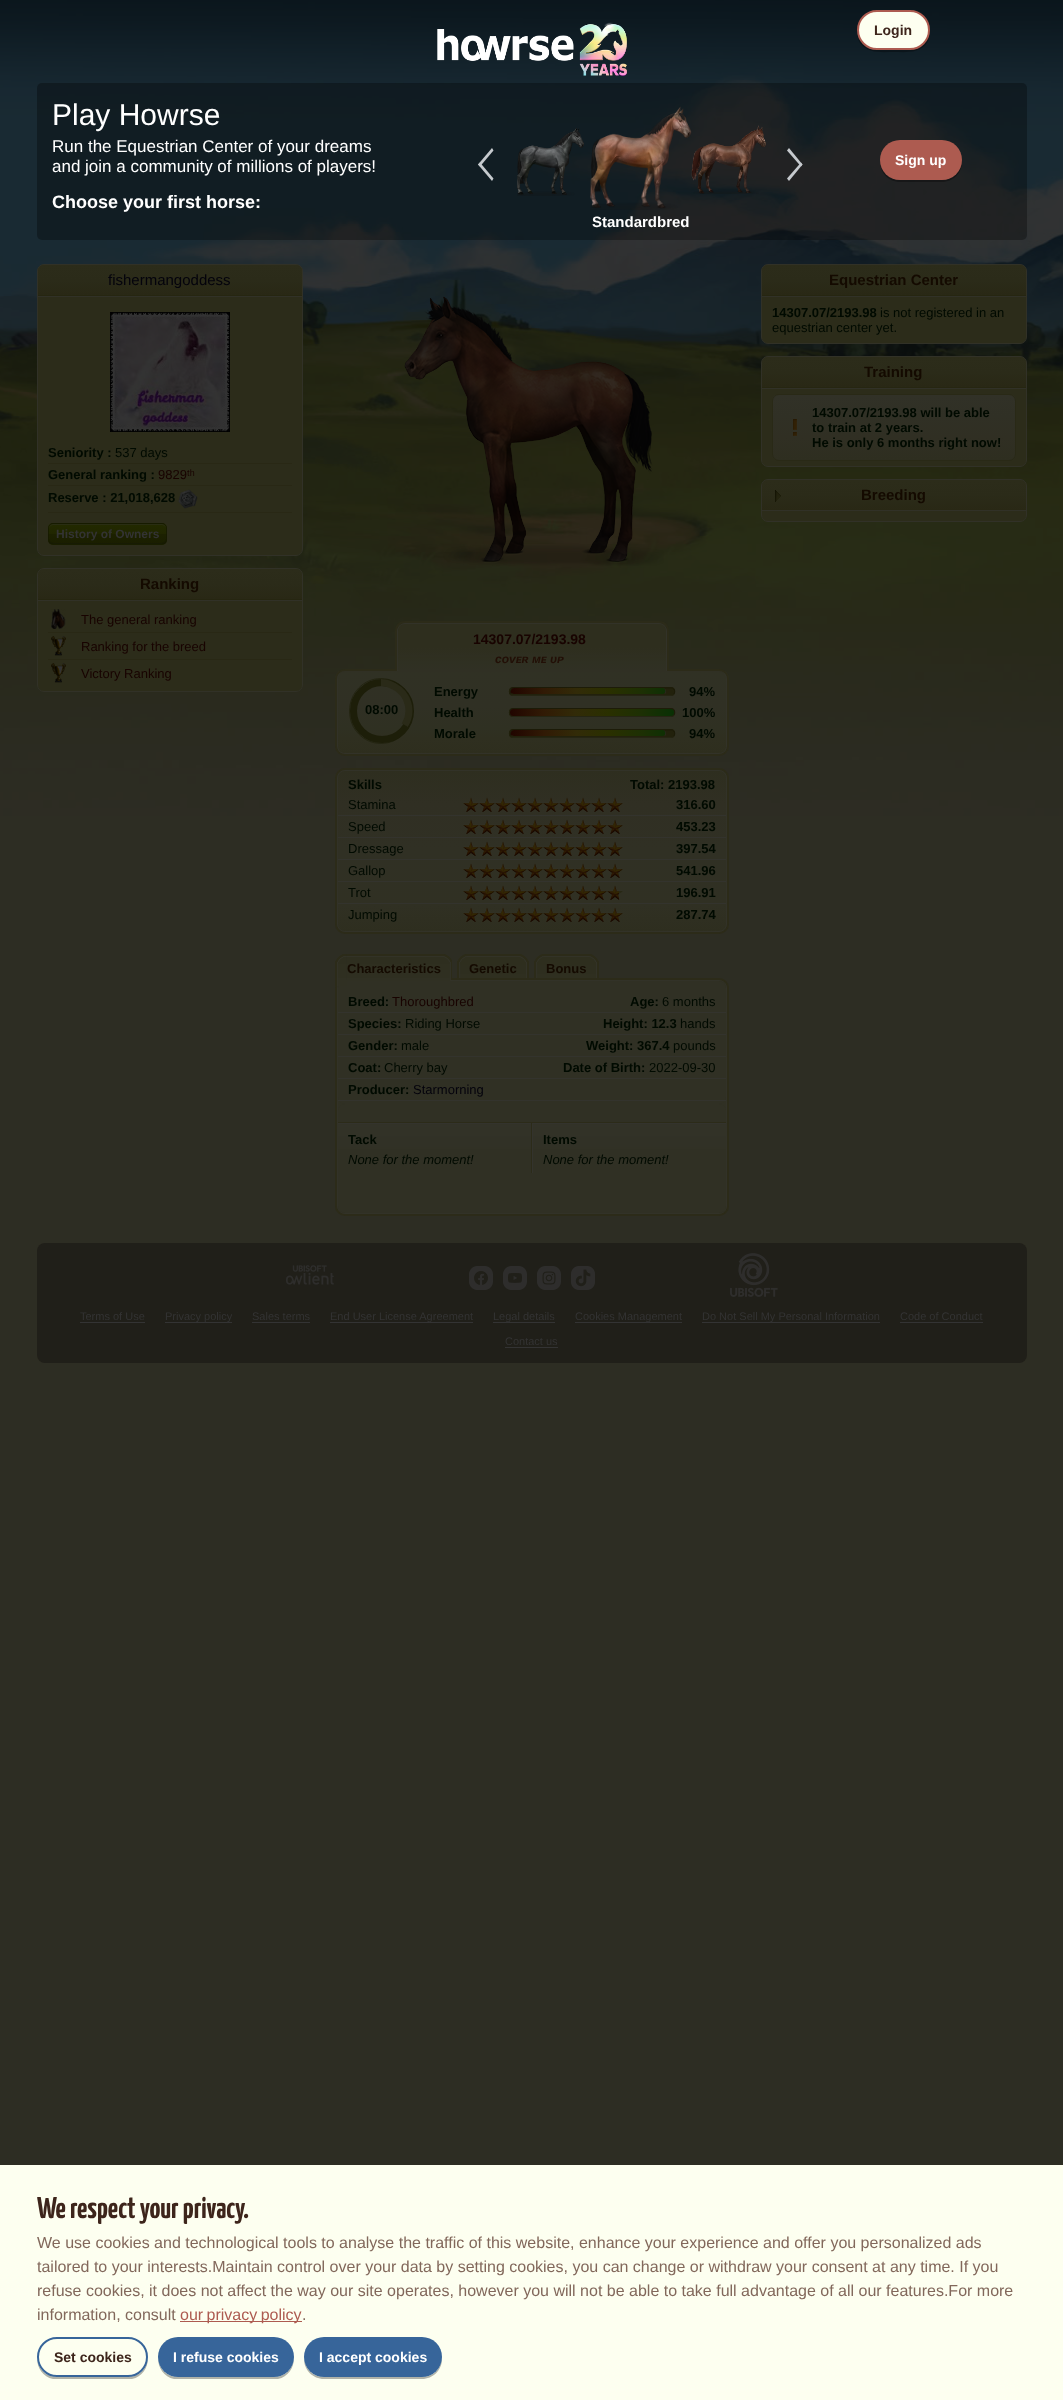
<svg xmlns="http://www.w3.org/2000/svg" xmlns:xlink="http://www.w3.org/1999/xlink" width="1063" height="2400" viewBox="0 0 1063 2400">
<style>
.cls-1{font:bold 14px Liberation Sans;fill:#3d251b}
.cls-2{font:30px Liberation Sans;fill:#ffffff}
.cls-3{font:17px Liberation Sans;fill:#ffffff}
.cls-4{font:bold 18px Liberation Sans;fill:#ffffff}
.cls-5{font:bold 14px Liberation Sans;fill:#ffffff}
.cls-6{font:bold 15px Liberation Sans;fill:#ffffff}
.cls-7{font:15px Liberation Sans;fill:#04030c}
.cls-8{font:bold 13px Liberation Sans;fill:#000a00}
.cls-9{font:13px Liberation Sans;fill:#000a00}
.cls-10{font:13px Liberation Sans;fill:#180300}
.cls-11{font:bold 12px Liberation Sans;fill:#333333}
.cls-12{font:bold 15px Liberation Sans;fill:#140a00}
.cls-13{font:bold 14px Liberation Sans;fill:#180300}
.cls-14{font:italic bold 12px Liberation Sans;fill:#220f06}
.cls-15{font:bold 13px Liberation Sans;fill:#140a00}
.cls-16{font:13px Liberation Sans;fill:#04030c}
.cls-17{font:italic 13px Liberation Sans;fill:#000a00}
.cls-18{font:bold 30px Yanone Kaffeesatz;fill:#3d251b}
.cls-19{font:16px Liberation Sans;fill:#82685b}
.cls-20{font:16px Liberation Sans;fill:#ad5b50}
.cls-21{font:11px Liberation Sans;fill:#333333}
</style>
<defs>
<linearGradient id="g1" gradientUnits="userSpaceOnUse" x1="170" y1="265" x2="170" y2="295"><stop offset="0" stop-color="#2c2c1a"/><stop offset="0.5" stop-color="#2b2b19"/><stop offset="1" stop-color="#292815"/></linearGradient>
<clipPath id="clip1"><rect x="48" y="523" width="119" height="22" rx="5"/></clipPath>
<linearGradient id="g2" gradientUnits="userSpaceOnUse" x1="108" y1="504" x2="108" y2="524"><stop offset="0" stop-color="#292d12"/><stop offset="0.02" stop-color="#222900"/><stop offset="0.5" stop-color="#202600"/><stop offset="0.51" stop-color="#1c2100"/><stop offset="1" stop-color="#1a1e00"/></linearGradient>
<linearGradient id="g3" gradientUnits="userSpaceOnUse" x1="108" y1="524" x2="108" y2="544"><stop offset="0" stop-color="#292d12"/><stop offset="0.02" stop-color="#222900"/><stop offset="0.5" stop-color="#202600"/><stop offset="0.51" stop-color="#1c2100"/><stop offset="1" stop-color="#1a1e00"/></linearGradient>
<linearGradient id="g4" gradientUnits="userSpaceOnUse" x1="108" y1="544" x2="108" y2="564"><stop offset="0" stop-color="#292d12"/><stop offset="0.02" stop-color="#222900"/><stop offset="0.5" stop-color="#202600"/><stop offset="0.51" stop-color="#1c2100"/><stop offset="1" stop-color="#1a1e00"/></linearGradient>
<linearGradient id="g5" gradientUnits="userSpaceOnUse" x1="170" y1="569" x2="170" y2="599"><stop offset="0" stop-color="#2c2c1a"/><stop offset="0.5" stop-color="#2b2b19"/><stop offset="1" stop-color="#292815"/></linearGradient>
<linearGradient id="g6" gradientUnits="userSpaceOnUse" x1="894" y1="265" x2="894" y2="295"><stop offset="0" stop-color="#2c2c1a"/><stop offset="0.5" stop-color="#2b2b19"/><stop offset="1" stop-color="#292815"/></linearGradient>
<linearGradient id="g7" gradientUnits="userSpaceOnUse" x1="894" y1="357" x2="894" y2="387"><stop offset="0" stop-color="#2c2c1a"/><stop offset="0.5" stop-color="#2b2b19"/><stop offset="1" stop-color="#292815"/></linearGradient>
<clipPath id="clip2"><rect x="772" y="394" width="244" height="67" rx="7"/></clipPath>
<linearGradient id="g8" gradientUnits="userSpaceOnUse" x1="894" y1="395" x2="894" y2="460"><stop offset="0" stop-color="#313127"/><stop offset="0.32" stop-color="#303025"/><stop offset="0.66" stop-color="#302f23"/><stop offset="1" stop-color="#2e2e20"/></linearGradient>
<linearGradient id="g9" gradientUnits="userSpaceOnUse" x1="894" y1="480" x2="894" y2="510"><stop offset="0" stop-color="#2c2c1a"/><stop offset="0.5" stop-color="#2b2b19"/><stop offset="1" stop-color="#292815"/></linearGradient>
<clipPath id="clip3"><rect x="335" y="669" width="394" height="87" rx="10"/></clipPath>
<linearGradient id="g10" gradientUnits="userSpaceOnUse" x1="532" y1="671" x2="532" y2="754"><stop offset="0" stop-color="#303124"/><stop offset="0.42" stop-color="#303024"/><stop offset="0.69" stop-color="#2f3022"/><stop offset="0.81" stop-color="#2f2f20"/><stop offset="1" stop-color="#2e2e1e"/></linearGradient>
<linearGradient id="g11" gradientUnits="userSpaceOnUse" x1="532" y1="623" x2="532" y2="671"><stop offset="0" stop-color="#2e2e1e"/><stop offset="0.45" stop-color="#2e2e1e"/><stop offset="0.51" stop-color="#2e2e1e"/><stop offset="0.7" stop-color="#2f2f21"/><stop offset="0.72" stop-color="#2f2f20"/><stop offset="0.81" stop-color="#2f3022"/><stop offset="1" stop-color="#303024"/></linearGradient>
<linearGradient id="g12" gradientUnits="userSpaceOnUse" x1="511" y1="692" x2="675" y2="692"><stop offset="0" stop-color="#210500"/><stop offset="0.2" stop-color="#311a05"/><stop offset="0.4" stop-color="#322b08"/><stop offset="0.6" stop-color="#2a3000"/><stop offset="0.8" stop-color="#1d3004"/><stop offset="1" stop-color="#083004"/></linearGradient>
<linearGradient id="g13" gradientUnits="userSpaceOnUse" x1="510" y1="713" x2="674" y2="713"><stop offset="0" stop-color="#210500"/><stop offset="0.2" stop-color="#311a05"/><stop offset="0.4" stop-color="#322b08"/><stop offset="0.6" stop-color="#2a3000"/><stop offset="0.8" stop-color="#1d3004"/><stop offset="1" stop-color="#083004"/></linearGradient>
<linearGradient id="g14" gradientUnits="userSpaceOnUse" x1="511" y1="734" x2="675" y2="734"><stop offset="0" stop-color="#210500"/><stop offset="0.2" stop-color="#311a05"/><stop offset="0.4" stop-color="#322b08"/><stop offset="0.6" stop-color="#2a3000"/><stop offset="0.8" stop-color="#1d3004"/><stop offset="1" stop-color="#083004"/></linearGradient>
<clipPath id="clip4"><rect x="335" y="768" width="394" height="166" rx="10"/></clipPath>
<linearGradient id="g15" gradientUnits="userSpaceOnUse" x1="532" y1="770" x2="532" y2="932"><stop offset="0" stop-color="#2e2e1f"/><stop offset="0.21" stop-color="#302f23"/><stop offset="0.49" stop-color="#303024"/><stop offset="0.84" stop-color="#303023"/><stop offset="1" stop-color="#2e2e1f"/></linearGradient>
<clipPath id="clip5"><rect x="335" y="978" width="394" height="238" rx="10"/></clipPath>
<linearGradient id="g16" gradientUnits="userSpaceOnUse" x1="532" y1="980" x2="532" y2="1214"><stop offset="0" stop-color="#2e2e1f"/><stop offset="0.21" stop-color="#302f23"/><stop offset="0.49" stop-color="#303024"/><stop offset="0.84" stop-color="#303023"/><stop offset="1" stop-color="#2e2e1f"/></linearGradient>
<clipPath id="clip6"><rect x="381" y="679" width="32" height="64"/></clipPath>
<clipPath id="clip7"><path d="M424 699.5L408 727L353 695L369 667.5Z"/></clipPath>
</defs>
<rect width="100%" height="100%" fill="#2d2d23"/>
<image xlink:href="image0.png" x="0" y="0" width="1063" height="816"/>
<image xlink:href="image1.png" x="437" y="22" width="190" height="54"/>
<path fill="#000000" fill-opacity="0.3" d="M857 31C857 35 858 40 860 43C868 54 882 52 894 52C905 52 919 54 927 43C929 40 930 35 930 31C929 42 921 50 910 50H877C866 50 858 42 857 31Z"/>
<rect fill="#fdfff0" stroke="#ad5b50" stroke-width="2" x="858" y="11" width="71" height="38" rx="19"/>
<rect fill="#000000" fill-opacity="0.3" x="37" y="83" width="990" height="157" rx="5"/>
<path fill="#000000" fill-opacity="0.3" d="M880 161V162C880 173 889 182 900 182H942C953 182 962 173 962 162V161C961 172 953 180 942 180H900C889 180 881 172 880 161Z"/>
<rect fill="#ad5b50" x="880" y="140" width="82" height="40" rx="20"/>
<path fill="#c6cace" d="M480 162.5L493.5 178.5L492 181L478 164.5Z"/>
<path fill="#c6cace" d="M492 148L493.5 150.5L480 166.5L478 164.5Z"/>
<image xlink:href="image2.png" x="517" y="128" width="67" height="68"/>
<image xlink:href="image4.png" x="691" y="125" width="75" height="69"/>
<image xlink:href="image3.png" x="590" y="106" width="102" height="104"/>
<path fill="#c6cace" d="M801 166.5L787 150.5L789 148L802.5 164.5Z"/>
<path fill="#c6cace" d="M789 181L787 178.5L801 162.5L802.5 164.5Z"/>
<rect fill="#2c2c1a" stroke="#313127" x="37.5" y="264.5" width="265" height="291" rx="6.5"/>
<path fill="url(#g1)" d="M45 265H295C299 265 302 268 302 272V295H38V272C38 268 41 265 45 265Z"/>
<rect fill="#262611" x="38" y="295" width="264" height="1"/>
<rect fill="#313127" x="38" y="296" width="264" height="1"/>
<image xlink:href="image5.png" x="110" y="312" width="120" height="120"/>
<rect fill="#292815" x="48" y="463" width="244" height="1"/>
<rect fill="#292815" x="48" y="485" width="244" height="1"/>
<rect fill="#292815" x="48" y="512" width="244" height="1"/>
<image xlink:href="image6.png" x="178" y="489" width="20" height="20"/>
<g clip-path="url(#clip1)">
<rect fill="url(#g2)" x="48" y="523" width="119" height="1"/>
<rect fill="url(#g3)" x="48" y="524" width="119" height="20"/>
<rect fill="url(#g4)" x="48" y="544" width="119" height="1"/>
</g>
<rect fill="none" stroke="#161900" stroke-opacity="0.7" x="48.5" y="523.5" width="118" height="21" rx="4.5"/>
<path fill="#292d12" d="M54 524C51 524 49 526 49 529C49 527 51 525 54 525H161C164 525 166 527 166 529C166 526 164 524 161 524Z"/>
<path fill="#141805" fill-opacity="0.5" d="M161 544C164 544 166 542 166 539C166 541 164 543 161 543H54C51 543 49 541 49 539C49 542 51 544 54 544Z"/>
<rect fill="#2c2c1a" stroke="#313127" x="37.5" y="568.5" width="265" height="123" rx="6.5"/>
<path fill="url(#g5)" d="M45 569H295C299 569 302 572 302 576V599H38V576C38 572 41 569 45 569Z"/>
<rect fill="#262611" x="38" y="599" width="264" height="1"/>
<rect fill="#313127" x="38" y="600" width="264" height="1"/>
<rect fill="#292815" x="48" y="632" width="244" height="1"/>
<image xlink:href="image7.png" x="51" y="609" width="15" height="20"/>
<rect fill="#292815" x="48" y="659" width="244" height="1"/>
<image xlink:href="image8.png" x="51" y="636" width="15" height="20"/>
<image xlink:href="image8.png" x="51" y="663" width="15" height="20"/>
<rect fill="#2c2c1a" stroke="#313127" x="761.5" y="264.5" width="265" height="79" rx="6.5"/>
<path fill="url(#g6)" d="M769 265H1019C1023 265 1026 268 1026 272V295H762V272C762 268 765 265 769 265Z"/>
<rect fill="#262611" x="762" y="295" width="264" height="1"/>
<rect fill="#313127" x="762" y="296" width="264" height="1"/>
<rect fill="#2c2c1a" stroke="#313127" x="761.5" y="356.5" width="265" height="110" rx="6.5"/>
<path fill="url(#g7)" d="M769 357H1019C1023 357 1026 360 1026 364V387H762V364C762 360 765 357 769 357Z"/>
<rect fill="#262611" x="762" y="387" width="264" height="1"/>
<rect fill="#313127" x="762" y="388" width="264" height="1"/>
<g clip-path="url(#clip2)">
<rect fill="url(#g8)" x="772" y="395" width="244" height="65"/>
</g>
<rect fill="none" stroke="#292916" x="772.5" y="394.5" width="243" height="66" rx="6.5"/>
<image xlink:href="image9.png" x="793" y="419" width="4" height="17"/>
<rect fill="#2c2c1a" stroke="#313127" x="761.5" y="479.5" width="265" height="42" rx="6.5"/>
<path fill="url(#g9)" d="M769 480H1019C1023 480 1026 483 1026 487V510H762V487C762 483 765 480 769 480Z"/>
<rect fill="#313127" x="762" y="510" width="264" height="1"/>
<image xlink:href="image10.png" x="775" y="490" width="6" height="12"/>
<image xlink:href="image11.png" x="404" y="296" width="260" height="270"/>
<g clip-path="url(#clip3)">
<rect fill="url(#g10)" x="335" y="671" width="394" height="83"/>
</g>
<rect fill="none" stroke="#2c2b19" stroke-width="2" x="336" y="670" width="392" height="85" rx="9"/>
<path fill="url(#g11)" d="M405 623H659C663.5 623 667 626.5 667 631V671H397V631C397 626.5 400.5 623 405 623Z"/>
<path fill="#2c2b19" fill-rule="evenodd" d="M405 621H659C665 621 669 625 669 631V671H395V631C395 625 399 621 405 621ZM405 623H659C663 623 667 627 667 631V671H397V631C397 627 401 623 405 623Z"/>
<path fill="#323228" fill-rule="evenodd" d="M405 623H659C663 623 667 627 667 631V671H397V631C397 627 401 623 405 623ZM405 624H659C663 624 666 627 666 631V671H398V631C398 627 401 624 405 624Z"/>
<path fill="none" stroke="#303024" d="M339.5 673.5C341 672.5 343 671.5 345 671.5H719C721 671.5 723 672.5 724.5 673.5"/>
<path fill="none" stroke="#323228" d="M724.5 673.5C725.5 675 726.5 677 726.5 679V746C726.5 748 725.5 750 724.5 751.5C723 752.5 721 753.5 719 753.5H345C343 753.5 341 752.5 339.5 751.5C338.5 750 337.5 748 337.5 746V679C337.5 677 338.5 675 339.5 673.5"/>
<path fill="none" stroke="#242512" d="M381 678.5C398.5 678.5 412.5 693 412.5 711C412.5 729 398.5 743.5 381 743.5C363.5 743.5 349.5 729 349.5 711C349.5 693 363.5 678.5 381 678.5Z"/>
<circle fill="none" stroke="#1d1e09" stroke-width="7" cx="382" cy="711" r="28.5"/>
<rect fill="#22210c" x="509" y="687" width="166" height="9" rx="4"/>
<path fill="none" stroke="#1c1b08" d="M510.5 688.5L513 687.5L672.5 688C675 689 675.5 692.5 673.5 694.5"/>
<path fill="none" stroke="#252513" d="M673.5 694.5C673 695 672 695.5 671 695.5H513C512 695.5 511 695 510.5 694.5"/>
<path fill="none" stroke="#20200b" d="M510.5 694.5C509 693 509 690 510.5 688.5"/>
<path fill="#323232" fill-opacity="0.4" d="M664.5 693.5L665 694L666 693V690C664.5 688.5 664 688 662 688C664 688 666 692 664.5 693.5Z"/>
<path fill="#110100" fill-opacity="0.4" d="M514 688C512 688 510 692 511.5 693.5L511 694C509.5 692 510.5 688 514 688Z"/>
<path fill="url(#g12)" d="M514 688H663C666 689 666 693 663 694H514L511 693C510 691 512 688 514 688Z"/>
<rect fill="#22210c" x="509" y="708" width="166" height="9" rx="4"/>
<path fill="none" stroke="#1c1b08" d="M510.5 709.5L513 708.5L672.5 709C675 710 675.5 713.5 673.5 715.5"/>
<path fill="none" stroke="#252513" d="M673.5 715.5C673 716 672 716.5 671 716.5H513C512 716.5 511 716 510.5 715.5"/>
<path fill="none" stroke="#20200b" d="M510.5 715.5C509 714 509 711 510.5 709.5"/>
<rect fill="url(#g13)" x="510" y="709" width="164" height="7" rx="3.5"/>
<rect fill="#22210c" x="509" y="729" width="166" height="9" rx="4"/>
<path fill="none" stroke="#1c1b08" d="M510.5 730.5L513 729.5L672.5 730C675 731 675.5 734.5 673.5 736.5"/>
<path fill="none" stroke="#252513" d="M673.5 736.5C673 737 672 737.5 671 737.5H513C512 737.5 511 737 510.5 736.5"/>
<path fill="none" stroke="#20200b" d="M510.5 736.5C509 735 509 732 510.5 730.5"/>
<path fill="#323232" fill-opacity="0.4" d="M664.5 735.5L665 736L666 735V732C664.5 730.5 664 730 662 730C664 730 666 734 664.5 735.5Z"/>
<path fill="#110100" fill-opacity="0.4" d="M514 730C512 730 510 734 511.5 735.5L511 736C509.5 734 510.5 730 514 730Z"/>
<path fill="url(#g14)" d="M514 730H663C666 731 666 735 663 736H514L511 735C510 733 512 730 514 730Z"/>
<g clip-path="url(#clip4)">
<rect fill="url(#g15)" x="335" y="770" width="394" height="162"/>
</g>
<rect fill="none" stroke="#2c2b19" stroke-width="2" x="336" y="769" width="392" height="164" rx="9"/>
<rect fill="none" stroke="#323228" x="337.5" y="770.5" width="389" height="161" rx="7.5"/>
<rect fill="#33332d" x="338" y="815" width="388" height="1"/>
<image xlink:href="image12.png" x="463" y="797" width="160" height="15"/>
<image xlink:href="image13.png" x="463" y="797" width="160" height="15"/>
<rect fill="#33332d" x="338" y="837" width="388" height="1"/>
<image xlink:href="image14.png" x="463" y="820" width="160" height="14"/>
<image xlink:href="image15.png" x="463" y="819" width="160" height="15"/>
<rect fill="#33332d" x="338" y="859" width="388" height="1"/>
<image xlink:href="image16.png" x="463" y="842" width="160" height="14"/>
<image xlink:href="image17.png" x="463" y="841" width="160" height="15"/>
<rect fill="#33332d" x="338" y="881" width="388" height="1"/>
<image xlink:href="image18.png" x="463" y="864" width="160" height="14"/>
<image xlink:href="image19.png" x="463" y="863" width="160" height="15"/>
<rect fill="#33332d" x="338" y="903" width="388" height="1"/>
<image xlink:href="image20.png" x="463" y="886" width="160" height="14"/>
<image xlink:href="image21.png" x="463" y="885" width="156" height="15"/>
<image xlink:href="image22.png" x="463" y="908" width="160" height="14"/>
<image xlink:href="image23.png" x="463" y="907" width="160" height="15"/>
<g clip-path="url(#clip5)">
<rect fill="url(#g16)" x="335" y="980" width="394" height="234"/>
</g>
<rect fill="none" stroke="#2c2b19" stroke-width="2" x="336" y="979" width="392" height="236" rx="9"/>
<rect fill="none" stroke="#323228" x="337.5" y="980.5" width="389" height="233" rx="7.5"/>
<rect fill="#303024" x="338" y="981" width="388" height="123" rx="7"/>
<image xlink:href="image24.png" x="335" y="954" width="12" height="32"/>
<image xlink:href="image25.png" x="347" y="954" width="105" height="27"/>
<image xlink:href="image26.png" x="457" y="954" width="12" height="24"/>
<image xlink:href="image27.png" x="469" y="954" width="60" height="24"/>
<image xlink:href="image28.png" x="534" y="954" width="12" height="24"/>
<image xlink:href="image29.png" x="546" y="954" width="53" height="24"/>
<rect fill="#33332d" x="338" y="1012" width="388" height="1"/>
<rect fill="#33332d" x="338" y="1034" width="388" height="1"/>
<rect fill="#33332d" x="338" y="1056" width="388" height="1"/>
<rect fill="#33332d" x="338" y="1078" width="388" height="1"/>
<rect fill="#33332d" x="338" y="1100" width="388" height="1"/>
<rect fill="#303024" x="338" y="1104" width="388" height="109" rx="7"/>
<image xlink:href="image30.png" x="338" y="1122" width="388" height="27"/>
<rect fill="#2c2b19" x="531" y="1123" width="1" height="50"/>
<rect fill="#33332d" x="532" y="1123" width="1" height="50"/>
<rect fill="#fdfff0" x="0" y="2165" width="1063" height="235"/>
<rect fill="#ad5b50" x="180" y="2321" width="122" height="1"/>
<path fill="#b1b3a8" d="M37 2358C37 2368 43 2377 53 2379H69H132C142 2377 148 2368 148 2358C147 2369 139 2377 128 2377H57C46 2377 38 2369 37 2358Z"/>
<rect fill="#fdfff0" stroke="#37659a" stroke-width="2" x="38" y="2338" width="109" height="38" rx="19"/>
<path fill="#b1b3a8" d="M158 2358C158 2368 164 2377 174 2379H194H278C288 2377 294 2368 294 2358C293 2369 285 2377 274 2377H178C167 2377 159 2369 158 2358Z"/>
<rect fill="#37659a" x="158" y="2337" width="136" height="40" rx="20"/>
<path fill="#b1b3a8" d="M304 2358V2359C304 2370 313 2379 324 2379H422C433 2379 442 2370 442 2359V2358C441 2369 433 2377 422 2377H324C313 2377 305 2369 304 2358Z"/>
<rect fill="#37659a" x="304" y="2337" width="138" height="40" rx="20"/>
<rect fill="#201f19" x="37" y="1243" width="990" height="120" rx="8"/>
<image xlink:href="image31.png" x="286" y="1265" width="48" height="20"/>
<image xlink:href="image32.png" x="469" y="1266" width="24" height="24"/>
<image xlink:href="image33.png" x="503" y="1266" width="24" height="24"/>
<image xlink:href="image34.png" x="537" y="1266" width="24" height="24"/>
<image xlink:href="image35.png" x="571" y="1266" width="24" height="24"/>
<image xlink:href="image36.png" x="730" y="1253" width="48" height="44"/>
<rect fill="#333333" x="80" y="1322" width="65" height="1"/>
<rect fill="#333333" x="165" y="1322" width="67" height="1"/>
<rect fill="#333333" x="252" y="1322" width="58" height="1"/>
<rect fill="#333333" x="330" y="1322" width="143" height="1"/>
<rect fill="#333333" x="493" y="1322" width="62" height="1"/>
<rect fill="#333333" x="575" y="1322" width="107" height="1"/>
<rect fill="#333333" x="702" y="1322" width="178" height="1"/>
<rect fill="#333333" x="900" y="1322" width="83" height="1"/>
<rect fill="#333333" x="505" y="1347" width="53" height="1"/>
<text class="cls-1" x="874" y="35">Login</text>
<text class="cls-2" x="52" y="125">Play Howrse</text>
<text class="cls-3"><tspan x="52" y="152">Run the Equestrian Center of your dreams</tspan><tspan x="52" y="172">and join a community of millions of players!</tspan></text>
<text class="cls-4" x="52" y="208">Choose your first horse:</text>
<text class="cls-5" x="895" y="165">Sign up</text>
<text class="cls-6" x="592" y="227">Standardbred</text>
<text class="cls-7" x="108" y="285">fishermangoddess</text>
<text class="cls-8" x="48" y="457">Seniority :</text>
<text class="cls-9" x="115" y="457">537 days</text>
<text class="cls-8" x="48" y="479">General ranking :</text>
<text class="cls-10" x="158" y="479">9829ᵗʰ</text>
<text class="cls-8" x="48" y="502">Reserve : 21,018,628</text>
<text class="cls-11" x="56" y="538">History of Owners</text>
<text class="cls-12" x="140" y="589">Ranking</text>
<text class="cls-10" x="81" y="624">The general ranking</text>
<text class="cls-10" x="81" y="651">Ranking for the breed</text>
<text class="cls-10" x="81" y="678">Victory Ranking</text>
<text class="cls-12" x="829" y="285">Equestrian Center</text>
<text class="cls-8" x="772" y="317">14307.07/2193.98</text>
<text class="cls-9" x="880" y="317">is not registered in an</text>
<text class="cls-9" x="772" y="332">equestrian center yet.</text>
<text class="cls-12" x="864" y="377">Training</text>
<text class="cls-8"><tspan x="812" y="417">14307.07/2193.98 will be able</tspan><tspan x="812" y="432">to train at 2 years.</tspan><tspan x="812" y="447">He is only 6 months right now!</tspan></text>
<text class="cls-12" x="861" y="500">Breeding</text>
<text class="cls-13" x="473" y="644">14307.07/2193.98</text>
<text class="cls-14" x="495" y="663">ᴄᴏᴠᴇʀ ᴍᴇ ᴜᴘ</text>
<text class="cls-8" x="365" y="714">08:00</text>
<g clip-path="url(#clip6)">
<g clip-path="url(#clip7)">
<path fill="none" stroke="#2a2a18" stroke-width="7" d="M405 725C397.5 739 380 743.5 366 735.5C352.5 728 348 710.5 356 697C363.5 683 381 678.5 394.5 686.5C408.5 694 413 711.5 405 725Z"/>
</g>
</g>
<text class="cls-8" x="434" y="696">Energy</text>
<text class="cls-8" x="689" y="696">94%</text>
<text class="cls-8" x="434" y="717">Health</text>
<text class="cls-8" x="682" y="717">100%</text>
<text class="cls-8" x="434" y="738">Morale</text>
<text class="cls-8" x="689" y="738">94%</text>
<text class="cls-8" x="348" y="789">Skills</text>
<text class="cls-8" x="630" y="789">Total: 2193.98</text>
<text class="cls-9" x="348" y="809">Stamina</text>
<text class="cls-8" x="676" y="809">316.60</text>
<text class="cls-9" x="348" y="831">Speed</text>
<text class="cls-8" x="676" y="831">453.23</text>
<text class="cls-9" x="348" y="853">Dressage</text>
<text class="cls-8" x="676" y="853">397.54</text>
<text class="cls-9" x="348" y="875">Gallop</text>
<text class="cls-8" x="676" y="875">541.96</text>
<text class="cls-9" x="348" y="897">Trot</text>
<text class="cls-8" x="676" y="897">196.91</text>
<text class="cls-9" x="348" y="919">Jumping</text>
<text class="cls-8" x="676" y="919">287.74</text>
<text class="cls-15" x="347" y="973">Characteristics</text>
<text class="cls-15" x="469" y="973">Genetic</text>
<text class="cls-15" x="546" y="973">Bonus</text>
<text class="cls-8" x="348" y="1006">Breed:</text>
<text class="cls-10" x="392" y="1006">Thoroughbred</text>
<text class="cls-8" x="630" y="1006">Age:</text>
<text class="cls-9" x="662" y="1006">6 months</text>
<text class="cls-8" x="348" y="1028">Species:</text>
<text class="cls-9" x="405" y="1028">Riding Horse</text>
<text class="cls-8" x="603" y="1028">Height: 12.3</text>
<text class="cls-9" x="680" y="1028">hands</text>
<text class="cls-8" x="348" y="1050">Gender:</text>
<text class="cls-9" x="401" y="1050">male</text>
<text class="cls-8" x="586" y="1050">Weight: 367.4</text>
<text class="cls-9" x="673" y="1050">pounds</text>
<text class="cls-8" x="348" y="1072">Coat:</text>
<text class="cls-9" x="384" y="1072">Cherry bay</text>
<text class="cls-8" x="563" y="1072">Date of Birth:</text>
<text class="cls-9" x="649" y="1072">2022-09-30</text>
<text class="cls-8" x="348" y="1094">Producer:</text>
<text class="cls-16" x="413" y="1094">Starmorning</text>
<text class="cls-8" x="348" y="1144">Tack</text>
<text class="cls-17" x="348" y="1164">None for the moment!</text>
<text class="cls-8" x="543" y="1144">Items</text>
<text class="cls-17" x="543" y="1164">None for the moment!</text>
<text class="cls-18" x="37" y="2218">We respect your privacy.</text>
<text class="cls-19"><tspan x="37" y="2248">We use cookies and technological tools to analyse the traffic of this website, enhance your experience and offer you personalized ads</tspan><tspan x="37" y="2272">tailored to your interests.Maintain control over your data by setting cookies, you can change or withdraw your consent at any time. If you</tspan><tspan x="37" y="2296">refuse cookies, it does not affect the way our site operates, however you will not be able to take full advantage of all our features.For more</tspan><tspan x="37" y="2320">information, consult</tspan></text>
<text class="cls-20" x="180" y="2320" word-spacing="-1">our privacy policy</text>
<text class="cls-19" x="302" y="2320">.</text>
<text class="cls-1" x="54" y="2362">Set cookies</text>
<text class="cls-5" x="173" y="2362">I refuse cookies</text>
<text class="cls-5" x="319" y="2362">I accept cookies</text>
<text class="cls-21" x="80" y="1320">Terms of Use</text>
<text class="cls-21" x="165" y="1320">Privacy policy</text>
<text class="cls-21" x="252" y="1320">Sales terms</text>
<text class="cls-21" x="330" y="1320">End User License Agreement</text>
<text class="cls-21" x="493" y="1320">Legal details</text>
<text class="cls-21" x="575" y="1320">Cookies Management</text>
<text class="cls-21" x="702" y="1320">Do Not Sell My Personal Information</text>
<text class="cls-21" x="900" y="1320">Code of Conduct</text>
<text class="cls-21" x="505" y="1345">Contact us</text>
</svg>
